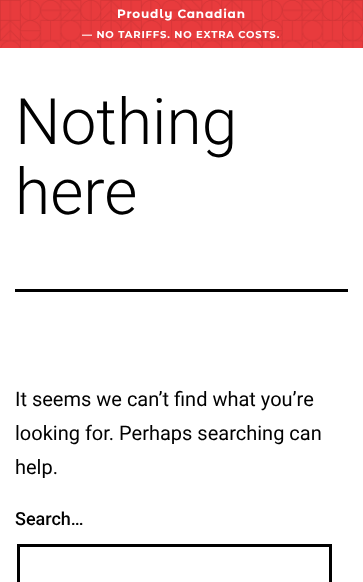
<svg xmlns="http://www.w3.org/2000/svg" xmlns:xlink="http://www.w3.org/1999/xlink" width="363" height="582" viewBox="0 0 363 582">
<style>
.cls-1{font:bold 12px Montserrat Alternates;letter-spacing:0.8px;fill:#ffffff}
.cls-2{font:bold 10px Montserrat;letter-spacing:0.8px;fill:#ffffff}
.cls-3{font:300 64px Roboto;fill:#000000}
.cls-4{font:20px Roboto;fill:#000000}
.cls-5{font:500 18px Roboto;fill:#000000}
</style>
<rect width="100%" height="100%" fill="#ffffff"/>
<rect fill="#e83b3d" x="0" y="0" width="363" height="48"/>
<image xlink:href="image0.png" x="0" y="0" width="363" height="48"/>
<rect fill="#000000" x="15" y="289" width="333" height="3"/>
<rect fill="none" stroke="#000000" stroke-width="3" x="18.5" y="545.5" width="312" height="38"/>
<text class="cls-1" x="117" y="18">Proudly Canadian</text>
<text class="cls-2" x="82" y="38">— NO TARIFFS. NO EXTRA COSTS.</text>
<text class="cls-3"><tspan x="15" y="144">Nothing</tspan><tspan x="15" y="214">here</tspan></text>
<text class="cls-4"><tspan x="15" y="406">It seems we can’t find what you’re</tspan><tspan x="15" y="440">looking for. Perhaps searching can</tspan><tspan x="15" y="474">help.</tspan></text>
<text class="cls-5" x="15" y="525">Search…</text>
</svg>
